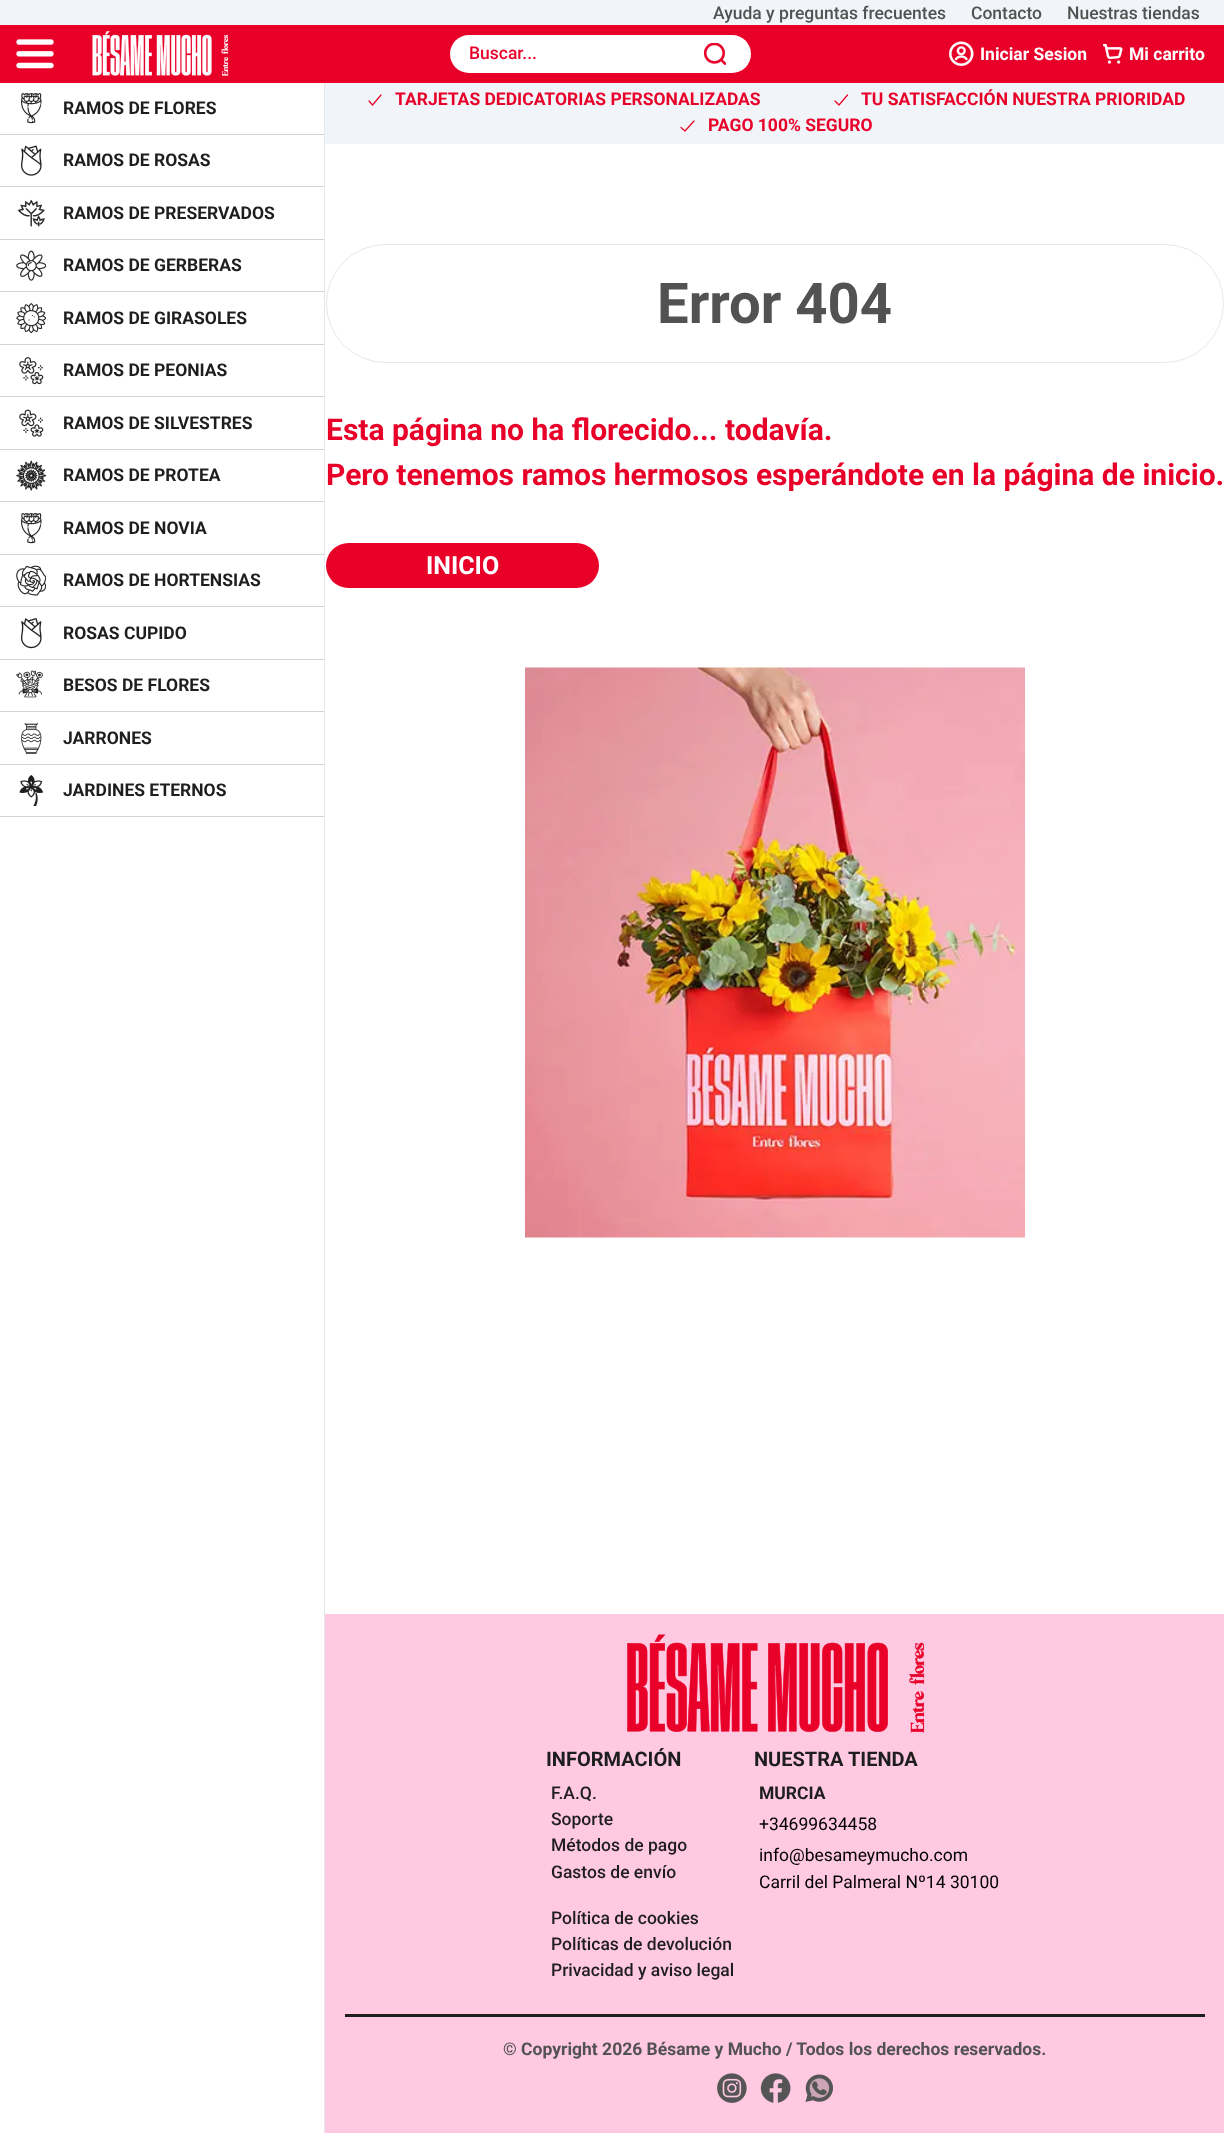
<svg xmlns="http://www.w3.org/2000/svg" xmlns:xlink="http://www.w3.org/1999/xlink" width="1224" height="2133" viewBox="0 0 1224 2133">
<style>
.cls-1{font:500 17.5px Roboto;fill:#525252}
.cls-2{font:500 17.5px Roboto;fill:#e80029}
.cls-3{font:bold 17.5px Roboto;fill:#ffffff}
.cls-4{font:bold 17.5px Roboto;fill:#1e1e1e}
.cls-5{font:bold 17.5px Roboto;fill:#e80029}
.cls-6{font:bold 56.25px Roboto;fill:#525252}
.cls-7{font:bold 30px Roboto;fill:#e80029}
.cls-8{font:bold 25px Roboto;fill:#ffffff}
.cls-9{font:bold 20px Roboto;fill:#1e1e1e}
.cls-10{font:500 17.5px Roboto;fill:#1e1e1e}
.cls-11{font:17.5px Roboto;fill:#000000}
.cls-12{font:bold 17.5px Roboto;fill:#525252}
</style>
<rect width="100%" height="100%" fill="#ffffff"/>
<rect fill="#f1f5f9" x="0" y="0" width="1224" height="25"/>
<rect fill="#e80029" x="0" y="25" width="1224" height="58"/>
<image xlink:href="image0.png" x="16" y="39" width="38" height="30"/>
<image xlink:href="image1.png" x="92" y="31" width="137" height="45"/>
<rect fill="#ffffff" x="450" y="35" width="301" height="38" rx="19"/>
<image xlink:href="image2.png" x="704" y="43" width="22" height="22"/>
<image xlink:href="image3.png" x="949" y="41" width="25" height="25"/>
<image xlink:href="image4.png" x="1103" y="44" width="20" height="20"/>
<rect fill="#e5e7eb" x="324" y="83" width="1" height="2050"/>
<rect fill="#d4d4d4" x="0" y="134" width="324" height="1"/>
<image xlink:href="image5.png" x="21" y="93" width="21" height="31"/>
<rect fill="#d4d4d4" x="0" y="186" width="324" height="1"/>
<image xlink:href="image6.png" x="20" y="145" width="22" height="31"/>
<rect fill="#d4d4d4" x="0" y="239" width="324" height="1"/>
<image xlink:href="image7.png" x="17" y="199" width="28" height="28"/>
<rect fill="#d4d4d4" x="0" y="291" width="324" height="1"/>
<image xlink:href="image8.png" x="16" y="250" width="30" height="31"/>
<rect fill="#d4d4d4" x="0" y="344" width="324" height="1"/>
<image xlink:href="image9.png" x="16" y="303" width="30" height="31"/>
<rect fill="#d4d4d4" x="0" y="396" width="324" height="1"/>
<image xlink:href="image10.png" x="19" y="357" width="25" height="28"/>
<rect fill="#d4d4d4" x="0" y="449" width="324" height="1"/>
<image xlink:href="image11.png" x="19" y="409" width="25" height="28"/>
<rect fill="#d4d4d4" x="0" y="501" width="324" height="1"/>
<image xlink:href="image12.png" x="16" y="460" width="30" height="31"/>
<rect fill="#d4d4d4" x="0" y="554" width="324" height="1"/>
<image xlink:href="image5.png" x="21" y="513" width="21" height="31"/>
<rect fill="#d4d4d4" x="0" y="606" width="324" height="1"/>
<image xlink:href="image13.png" x="16" y="565" width="30" height="31"/>
<rect fill="#d4d4d4" x="0" y="659" width="324" height="1"/>
<image xlink:href="image14.png" x="20" y="618" width="22" height="31"/>
<rect fill="#d4d4d4" x="0" y="711" width="324" height="1"/>
<image xlink:href="image15.png" x="16" y="670" width="27" height="28"/>
<rect fill="#d4d4d4" x="0" y="764" width="324" height="1"/>
<image xlink:href="image16.png" x="21" y="723" width="21" height="31"/>
<rect fill="#d4d4d4" x="0" y="816" width="324" height="1"/>
<image xlink:href="image17.png" x="19" y="775" width="24" height="31"/>
<rect fill="#f1f5f9" x="325" y="83" width="899" height="61"/>
<path fill="none" stroke="#e80029" stroke-width="1.2" stroke-linecap="round" stroke-linejoin="round" d="M381 95L372.5 105L369 101"/>
<path fill="none" stroke="#e80029" stroke-width="1.2" stroke-linecap="round" stroke-linejoin="round" d="M847.5 95L839 105L835 101"/>
<path fill="none" stroke="#e80029" stroke-width="1.2" stroke-linecap="round" stroke-linejoin="round" d="M694 121L685 131L681 127.5"/>
<rect fill="none" stroke="#e5e7eb" x="326.5" y="244.5" width="897" height="118" rx="59"/>
<rect fill="#e80029" x="326" y="543" width="273" height="45" rx="22.5"/>
<image xlink:href="image18.png" x="525" y="667" width="500" height="571"/>
<rect fill="#ffc9e1" x="325" y="1614" width="899" height="519"/>
<image xlink:href="image19.png" x="627" y="1634" width="298" height="99"/>
<rect fill="#1e1e1e" x="345" y="2014" width="860" height="3"/>
<image xlink:href="image20.png" x="717" y="2073" width="30" height="30"/>
<image xlink:href="image21.png" x="760" y="2073" width="31" height="30"/>
<image xlink:href="image22.png" x="805" y="2074" width="28" height="28"/>
<text class="cls-1" x="713" y="19">Ayuda y preguntas frecuentes</text>
<text class="cls-1" x="971" y="19">Contacto</text>
<text class="cls-1" x="1067" y="19">Nuestras tiendas</text>
<text class="cls-2" x="469" y="59">Buscar...</text>
<text class="cls-3" x="980" y="60">Iniciar Sesion</text>
<text class="cls-3" x="1129" y="60">Mi carrito</text>
<text class="cls-4" x="63" y="114">RAMOS DE FLORES</text>
<text class="cls-4" x="63" y="166">RAMOS DE ROSAS</text>
<text class="cls-4" x="63" y="219">RAMOS DE PRESERVADOS</text>
<text class="cls-4" x="63" y="271">RAMOS DE GERBERAS</text>
<text class="cls-4" x="63" y="324">RAMOS DE GIRASOLES</text>
<text class="cls-4" x="63" y="376">RAMOS DE PEONIAS</text>
<text class="cls-4" x="63" y="429">RAMOS DE SILVESTRES</text>
<text class="cls-4" x="63" y="481">RAMOS DE PROTEA</text>
<text class="cls-4" x="63" y="534">RAMOS DE NOVIA</text>
<text class="cls-4" x="63" y="586">RAMOS DE HORTENSIAS</text>
<text class="cls-4" x="63" y="639">ROSAS CUPIDO</text>
<text class="cls-4" x="63" y="691">BESOS DE FLORES</text>
<text class="cls-4" x="63" y="744">JARRONES</text>
<text class="cls-4" x="63" y="796">JARDINES ETERNOS</text>
<text class="cls-5" x="395" y="105">TARJETAS DEDICATORIAS PERSONALIZADAS</text>
<text class="cls-5" x="861" y="105">TU SATISFACCIÓN NUESTRA PRIORIDAD</text>
<text class="cls-5" x="708" y="131">PAGO 100% SEGURO</text>
<text class="cls-6" x="657" y="323">Error 404</text>
<text class="cls-7"><tspan x="326" y="440">Esta página no ha florecido... todavía.</tspan><tspan x="326" y="485">Pero tenemos ramos hermosos esperándote en la página de inicio.</tspan></text>
<text class="cls-8" x="426" y="574">INICIO</text>
<text class="cls-9" x="546" y="1766">INFORMACIÓN</text>
<text class="cls-10"><tspan x="551" y="1799">F.A.Q.</tspan><tspan x="551" y="1825">Soporte</tspan><tspan x="551" y="1851">Métodos de pago</tspan><tspan x="551" y="1878">Gastos de envío</tspan></text>
<text class="cls-10"><tspan x="551" y="1924">Política de cookies</tspan><tspan x="551" y="1950">Políticas de devolución</tspan><tspan x="551" y="1976">Privacidad y aviso legal</tspan></text>
<text class="cls-9" x="754" y="1766">NUESTRA TIENDA</text>
<text class="cls-4" x="759" y="1799">MURCIA</text>
<text class="cls-11"><tspan x="759" y="1830">+34699634458</tspan><tspan x="759" y="1861">info@besameymucho.com</tspan><tspan x="759" y="1888">Carril del Palmeral Nº14 30100</tspan></text>
<text class="cls-12" x="503" y="2055">© Copyright 2026 Bésame y Mucho / Todos los derechos reservados.</text>
</svg>
